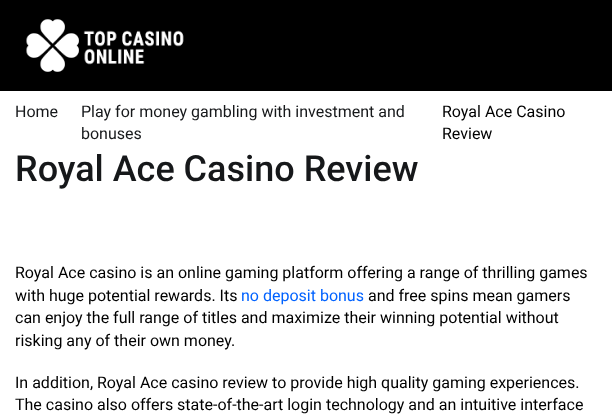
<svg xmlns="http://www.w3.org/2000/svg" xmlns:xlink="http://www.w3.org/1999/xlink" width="612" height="419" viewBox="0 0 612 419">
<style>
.cls-1{font:16px Roboto;fill:#16181a}
.cls-2{font:16px Roboto;fill:#000000}
.cls-3{font:500 36px Roboto;fill:#16181a}
.cls-4{font:16px Roboto;fill:#0062ff}
</style>
<rect width="100%" height="100%" fill="#ffffff"/>
<rect fill="#000000" x="0" y="0" width="612" height="91"/>
<image xlink:href="image0.png" x="26" y="19" width="158" height="53"/>
<text class="cls-1" x="15" y="117">Home</text>
<text class="cls-1"><tspan x="81" y="117">Play for money gambling with investment and</tspan><tspan x="81" y="139">bonuses</tspan></text>
<text class="cls-2"><tspan x="442" y="117">Royal Ace Casino</tspan><tspan x="442" y="139">Review</tspan></text>
<text class="cls-3" x="15" y="181">Royal Ace Casino Review</text>
<text class="cls-2"><tspan x="15" y="278">Royal Ace casino is an online gaming platform offering a range of thrilling games</tspan><tspan x="15" y="301">with huge potential rewards. Its</tspan></text>
<text class="cls-4" x="241" y="301">no deposit bonus</text>
<text class="cls-2" x="368" y="301">and free spins mean gamers</text>
<text class="cls-2"><tspan x="15" y="323">can enjoy the full range of titles and maximize their winning potential without</tspan><tspan x="15" y="346">risking any of their own money.</tspan></text>
<text class="cls-2"><tspan x="15" y="388">In addition, Royal Ace casino review to provide high quality gaming experiences.</tspan><tspan x="15" y="410">The casino also offers state-of-the-art login technology and an intuitive interface</tspan></text>
</svg>
